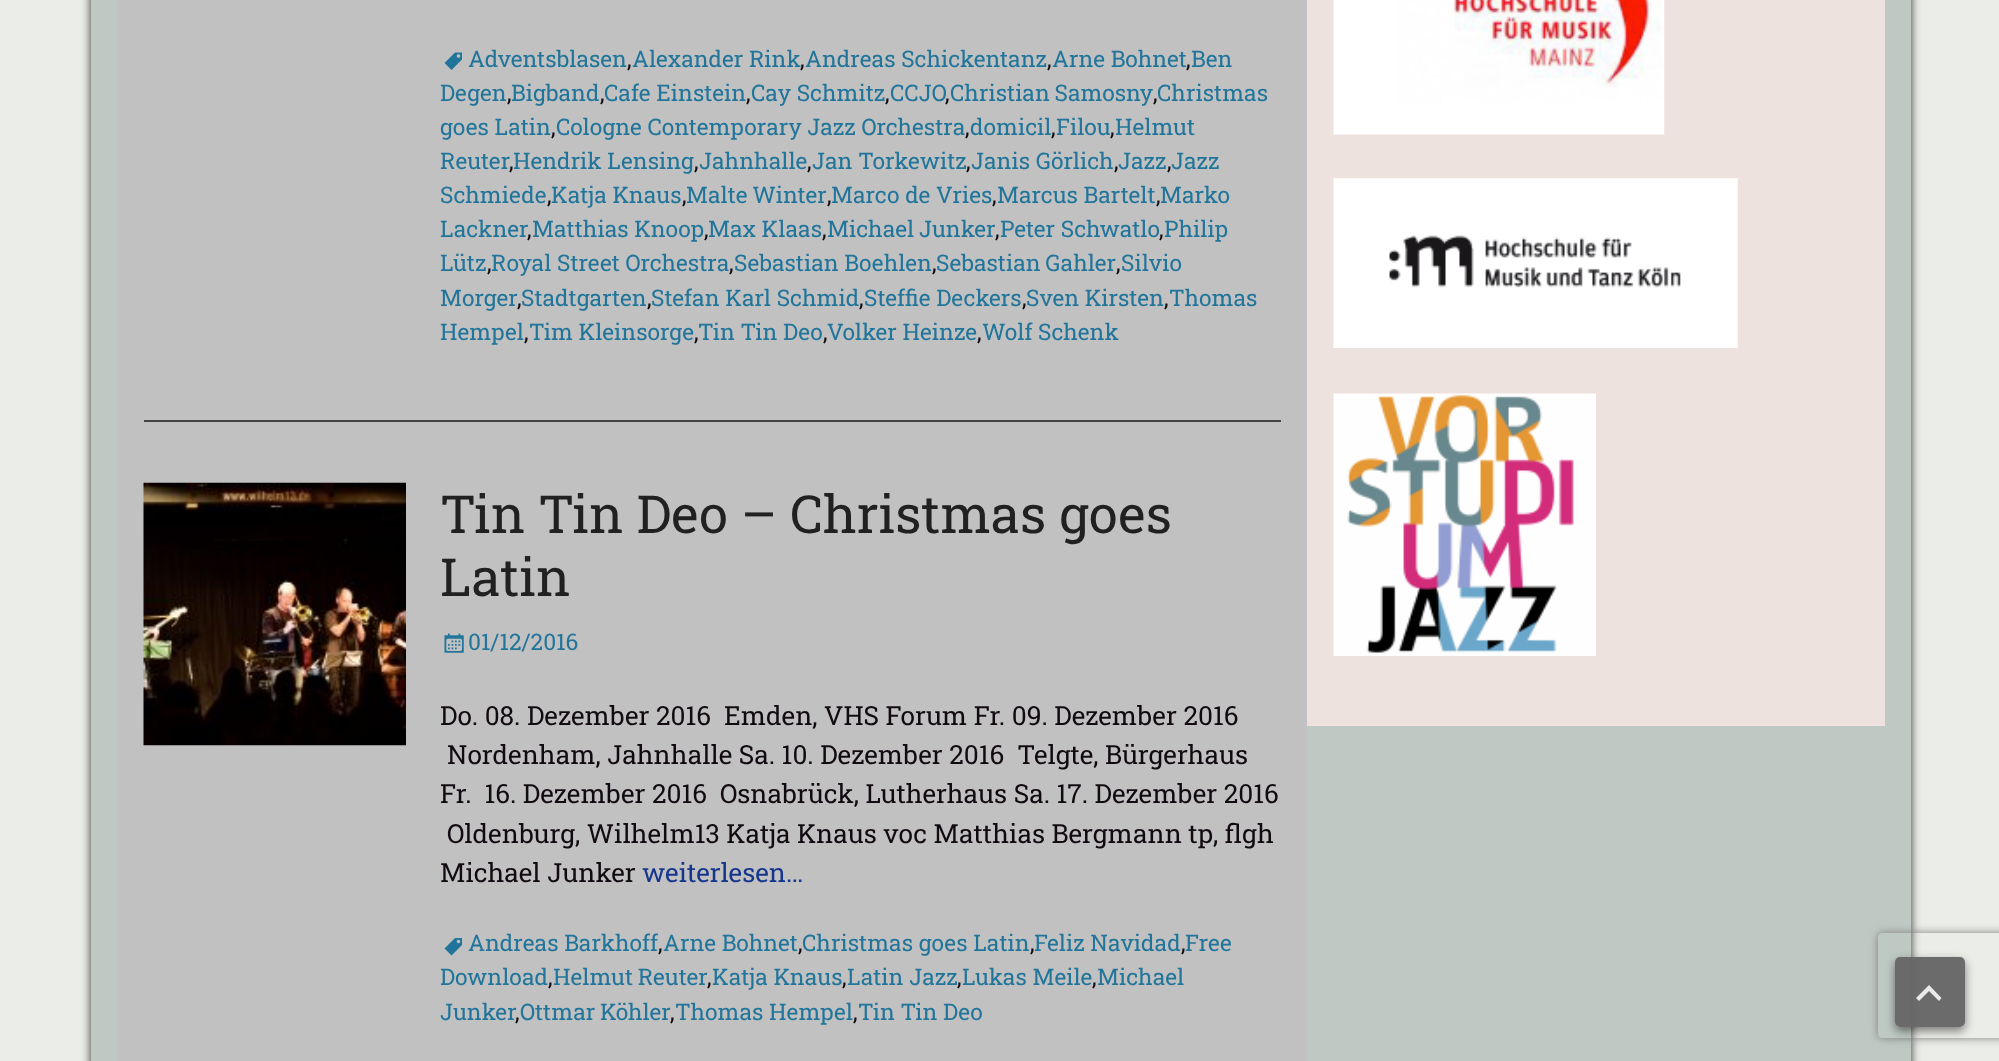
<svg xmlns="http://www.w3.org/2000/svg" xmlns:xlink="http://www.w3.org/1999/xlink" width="1999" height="1061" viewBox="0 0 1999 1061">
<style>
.cls-1{font:22.75px Roboto Slab;fill:#21759b}
.cls-2{font:22.75px Roboto Slab;fill:#110b11}
.cls-3{font:52.5px Roboto Slab;fill:#212121}
.cls-4{font:26.25px Roboto Slab;fill:#110b11}
.cls-5{font:26.25px Roboto Slab;fill:#15368c}
</style>
<defs>
<clipPath id="clip1"><path d="M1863 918H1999V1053H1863ZM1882 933H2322C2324 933 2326 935 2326 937V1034C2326 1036 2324 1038 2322 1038H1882C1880 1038 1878 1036 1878 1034V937C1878 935 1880 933 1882 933Z" clip-rule="evenodd"/></clipPath>
<clipPath id="clip2"><path d="M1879 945H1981V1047H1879ZM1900 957H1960C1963 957 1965 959 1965 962V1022C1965 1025 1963 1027 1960 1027H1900C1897 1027 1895 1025 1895 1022V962C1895 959 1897 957 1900 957Z" clip-rule="evenodd"/></clipPath>
</defs>
<rect width="100%" height="100%" fill="#ebede8"/>
<rect fill="#000000" fill-opacity="0.8" filter="blur(5px)" x="91" y="-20" width="1820" height="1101" rx="5"/>
<rect fill="#bfc9c4" x="91" y="0" width="1820" height="1061"/>
<rect fill="#c1c1c1" x="117" y="0" width="1190" height="1061"/>
<rect fill="#444444" x="144" y="420" width="1137" height="2"/>
<image xlink:href="image0.png" x="444" y="52" width="18" height="18"/>
<image xlink:href="image1.png" x="143" y="482" width="263" height="264"/>
<image xlink:href="image2.png" x="444" y="633" width="20" height="20"/>
<image xlink:href="image3.png" x="444" y="938" width="18" height="18"/>
<rect fill="#ede2de" x="1307" y="0" width="578" height="726"/>
<image xlink:href="image4.png" x="1333" y="0" width="332" height="135"/>
<image xlink:href="image5.png" x="1333" y="178" width="405" height="170"/>
<image xlink:href="image6.png" x="1333" y="393" width="263" height="263"/>
<g clip-path="url(#clip1)">
<rect fill="#808080" filter="blur(4.5px)" x="1878" y="933" width="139" height="105" rx="4"/>
</g>
<g clip-path="url(#clip2)">
<rect fill="#000000" fill-opacity="0.48" filter="blur(5px)" x="1895" y="961" width="70" height="70" rx="5"/>
</g>
<rect fill="#666666" fill-opacity="0.97" x="1895" y="957" width="70" height="70" rx="5"/>
<path fill="#eaeaea" d="M1939 1001L1929 991L1919 1001L1916 998L1929 985L1941.5 998Z"/>
<text class="cls-1" x="468" y="67">Adventsblasen</text>
<text class="cls-2" x="627" y="67">,</text>
<text class="cls-1" x="632" y="67">Alexander Rink</text>
<text class="cls-2" x="800" y="67">,</text>
<text class="cls-1" x="805" y="67">Andreas Schickentanz</text>
<text class="cls-2" x="1047" y="67">,</text>
<text class="cls-1" x="1052" y="67">Arne Bohnet</text>
<text class="cls-2" x="1186" y="67">,</text>
<text class="cls-1" x="1191" y="67">Ben</text>
<text class="cls-1" x="440" y="101">Degen</text>
<text class="cls-2" x="507" y="101">,</text>
<text class="cls-1" x="511" y="101">Bigband</text>
<text class="cls-2" x="600" y="101">,</text>
<text class="cls-1" x="604" y="101">Cafe Einstein</text>
<text class="cls-2" x="746" y="101">,</text>
<text class="cls-1" x="751" y="101">Cay Schmitz</text>
<text class="cls-2" x="885" y="101">,</text>
<text class="cls-1" x="890" y="101">CCJO</text>
<text class="cls-2" x="945" y="101">,</text>
<text class="cls-1" x="950" y="101" word-spacing="-1">Christian Samosny</text>
<text class="cls-2" x="1153" y="101">,</text>
<text class="cls-1" x="1157" y="101">Christmas</text>
<text class="cls-1" x="440" y="135">goes Latin</text>
<text class="cls-2" x="551" y="135">,</text>
<text class="cls-1" x="556" y="135">Cologne Contemporary Jazz Orchestra</text>
<text class="cls-2" x="965" y="135">,</text>
<text class="cls-1" x="970" y="135">domicil</text>
<text class="cls-2" x="1051" y="135">,</text>
<text class="cls-1" x="1056" y="135">Filou</text>
<text class="cls-2" x="1110" y="135">,</text>
<text class="cls-1" x="1115" y="135">Helmut</text>
<text class="cls-1" x="440" y="169">Reuter</text>
<text class="cls-2" x="509" y="169">,</text>
<text class="cls-1" x="513" y="169">Hendrik Lensing</text>
<text class="cls-2" x="694" y="169">,</text>
<text class="cls-1" x="699" y="169">Jahnhalle</text>
<text class="cls-2" x="807" y="169">,</text>
<text class="cls-1" x="812" y="169">Jan Torkewitz</text>
<text class="cls-2" x="966" y="169">,</text>
<text class="cls-1" x="971" y="169">Janis Görlich</text>
<text class="cls-2" x="1114" y="169">,</text>
<text class="cls-1" x="1118" y="169">Jazz</text>
<text class="cls-2" x="1167" y="169">,</text>
<text class="cls-1" x="1171" y="169">Jazz</text>
<text class="cls-1" x="440" y="203">Schmiede</text>
<text class="cls-2" x="547" y="203">,</text>
<text class="cls-1" x="551" y="203">Katja Knaus</text>
<text class="cls-2" x="682" y="203">,</text>
<text class="cls-1" x="686" y="203" word-spacing="-1">Malte Winter</text>
<text class="cls-2" x="827" y="203">,</text>
<text class="cls-1" x="831" y="203">Marco de Vries</text>
<text class="cls-2" x="992" y="203">,</text>
<text class="cls-1" x="997" y="203">Marcus Bartelt</text>
<text class="cls-2" x="1156" y="203">,</text>
<text class="cls-1" x="1160" y="203">Marko</text>
<text class="cls-1" x="440" y="237">Lackner</text>
<text class="cls-2" x="527" y="237">,</text>
<text class="cls-1" x="532" y="237">Matthias Knoop</text>
<text class="cls-2" x="704" y="237">,</text>
<text class="cls-1" x="708" y="237">Max Klaas</text>
<text class="cls-2" x="822" y="237">,</text>
<text class="cls-1" x="827" y="237" word-spacing="-1">Michael Junker</text>
<text class="cls-2" x="995" y="237">,</text>
<text class="cls-1" x="1000" y="237">Peter Schwatlo</text>
<text class="cls-2" x="1159" y="237">,</text>
<text class="cls-1" x="1164" y="237">Philip</text>
<text class="cls-1" x="440" y="271">Lütz</text>
<text class="cls-2" x="487" y="271">,</text>
<text class="cls-1" x="491" y="271">Royal Street Orchestra</text>
<text class="cls-2" x="729" y="271">,</text>
<text class="cls-1" x="734" y="271">Sebastian Boehlen</text>
<text class="cls-2" x="932" y="271">,</text>
<text class="cls-1" x="936" y="271" word-spacing="-1">Sebastian Gahler</text>
<text class="cls-2" x="1116" y="271">,</text>
<text class="cls-1" x="1121" y="271">Silvio</text>
<text class="cls-1" x="440" y="306">Morger</text>
<text class="cls-2" x="517" y="306">,</text>
<text class="cls-1" x="521" y="306">Stadtgarten</text>
<text class="cls-2" x="647" y="306">,</text>
<text class="cls-1" x="651" y="306">Stefan Karl Schmid</text>
<text class="cls-2" x="859" y="306">,</text>
<text class="cls-1" x="864" y="306">Steffie Deckers</text>
<text class="cls-2" x="1022" y="306">,</text>
<text class="cls-1" x="1026" y="306">Sven Kirsten</text>
<text class="cls-2" x="1164" y="306">,</text>
<text class="cls-1" x="1169" y="306">Thomas</text>
<text class="cls-1" x="440" y="340">Hempel</text>
<text class="cls-2" x="524" y="340">,</text>
<text class="cls-1" x="529" y="340">Tim Kleinsorge</text>
<text class="cls-2" x="694" y="340">,</text>
<text class="cls-1" x="698" y="340">Tin Tin Deo</text>
<text class="cls-2" x="823" y="340">,</text>
<text class="cls-1" x="827" y="340">Volker Heinze</text>
<text class="cls-2" x="977" y="340">,</text>
<text class="cls-1" x="982" y="340">Wolf Schenk</text>
<text class="cls-3"><tspan x="440" y="533">Tin Tin Deo – Christmas goes</tspan><tspan x="440" y="596">Latin</tspan></text>
<text class="cls-1" x="468" y="650">01/12/2016</text>
<text class="cls-4" xml:space="preserve" x="440" y="725">Do. 08. Dezember 2016  Emden, VHS Forum Fr. 09. Dezember 2016</text>
<text class="cls-4" xml:space="preserve" x="447" y="764">Nordenham, Jahnhalle Sa. 10. Dezember 2016  Telgte, Bürgerhaus</text>
<text class="cls-4" xml:space="preserve" x="440" y="803">Fr.  16. Dezember 2016  Osnabrück, Lutherhaus Sa. 17. Dezember 2016</text>
<text class="cls-4" x="447" y="843">Oldenburg, Wilhelm13 Katja Knaus voc Matthias Bergmann tp, flgh</text>
<text class="cls-4" x="440" y="882">Michael Junker</text>
<text class="cls-5" x="642" y="882">weiterlesen…</text>
<text class="cls-1" x="468" y="951">Andreas Barkhoff</text>
<text class="cls-2" x="658" y="951">,</text>
<text class="cls-1" x="663" y="951">Arne Bohnet</text>
<text class="cls-2" x="798" y="951">,</text>
<text class="cls-1" x="802" y="951">Christmas goes Latin</text>
<text class="cls-2" x="1030" y="951">,</text>
<text class="cls-1" x="1034" y="951">Feliz Navidad</text>
<text class="cls-2" x="1181" y="951">,</text>
<text class="cls-1" x="1185" y="951">Free</text>
<text class="cls-1" x="440" y="985">Download</text>
<text class="cls-2" x="548" y="985">,</text>
<text class="cls-1" x="553" y="985" word-spacing="-1">Helmut Reuter</text>
<text class="cls-2" x="707" y="985">,</text>
<text class="cls-1" x="712" y="985">Katja Knaus</text>
<text class="cls-2" x="842" y="985">,</text>
<text class="cls-1" x="847" y="985">Latin Jazz</text>
<text class="cls-2" x="957" y="985">,</text>
<text class="cls-1" x="962" y="985">Lukas Meile</text>
<text class="cls-2" x="1092" y="985">,</text>
<text class="cls-1" x="1097" y="985">Michael</text>
<text class="cls-1" x="440" y="1020">Junker</text>
<text class="cls-1" x="520" y="1020" word-spacing="-1">Ottmar Köhler</text>
<text class="cls-1" x="675" y="1020">Thomas Hempel</text>
<text class="cls-1" x="858" y="1020">Tin Tin Deo</text>
<text class="cls-2" x="515" y="1020">,</text>
<text class="cls-2" x="670" y="1020">,</text>
<text class="cls-2" x="853" y="1020">,</text>
</svg>
